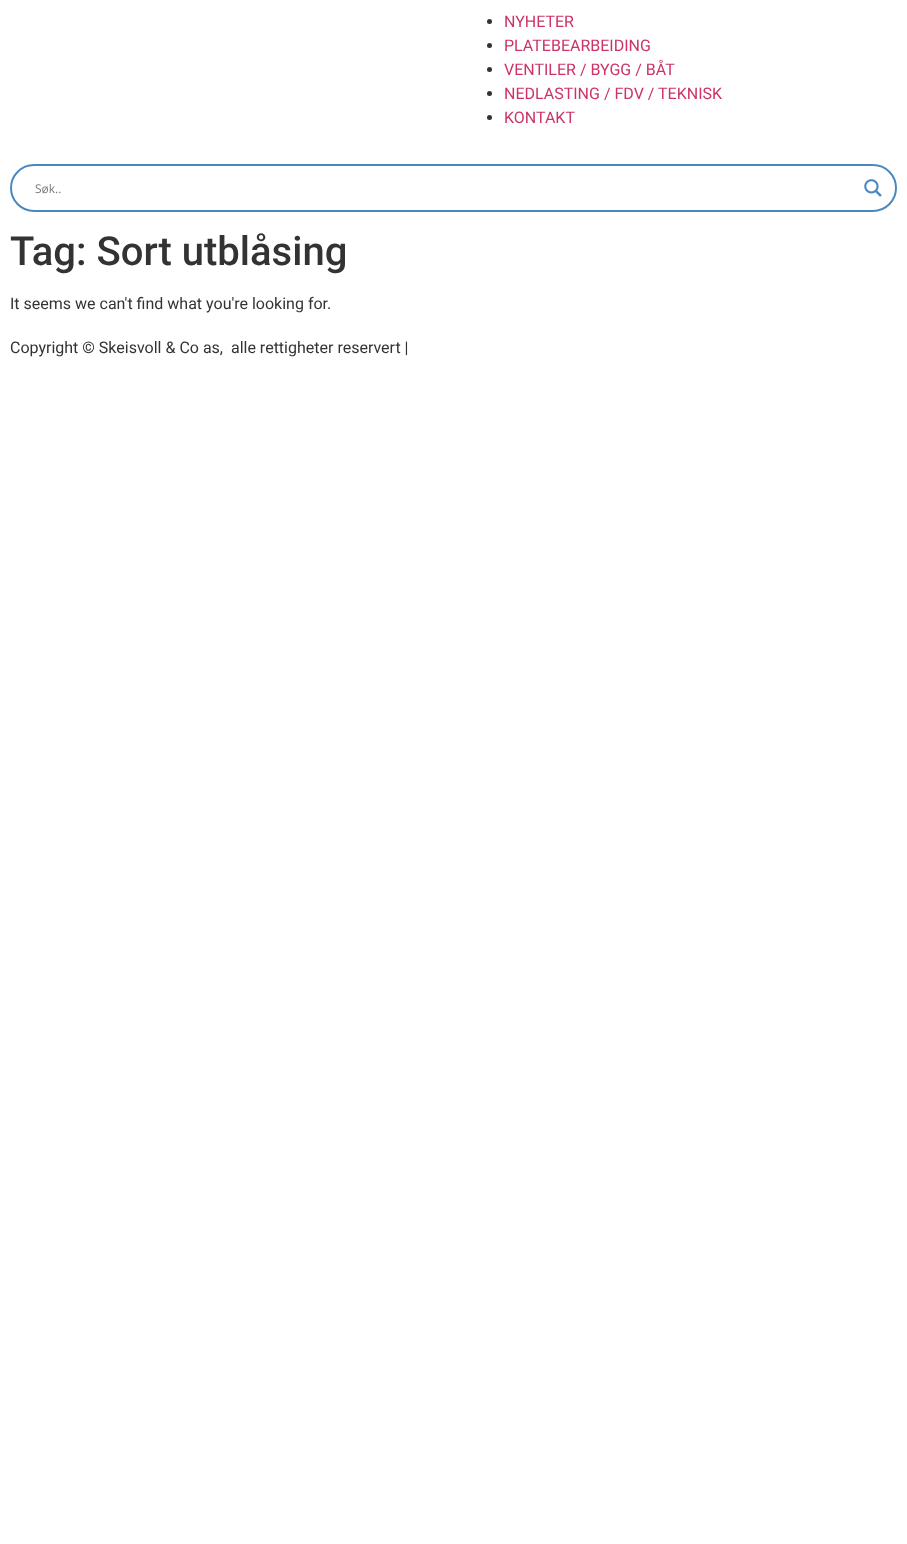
<svg xmlns="http://www.w3.org/2000/svg" xmlns:xlink="http://www.w3.org/1999/xlink" width="907" height="1544" viewBox="0 0 907 1544">
<style>
.cls-1{font:16px Roboto;fill:#cc3366}
.cls-2{font:12px Open Sans;fill:#7d7d7d}
.cls-3{font:500 40px Roboto;fill:#333333}
.cls-4{font:16px Roboto;fill:#333333}
</style>
<rect width="100%" height="100%" fill="#ffffff"/>
<circle fill="#333333" cx="489.5" cy="21.5" r="2.5"/>
<circle fill="#333333" cx="489.5" cy="45.5" r="2.5"/>
<circle fill="#333333" cx="489.5" cy="69.5" r="2.5"/>
<circle fill="#333333" cx="489.5" cy="93.5" r="2.5"/>
<circle fill="#333333" cx="489.5" cy="117.5" r="2.5"/>
<rect fill="none" stroke="#4a89bf" stroke-width="2" x="11" y="165" width="885" height="46" rx="23"/>
<image xlink:href="image0.png" x="864" y="179" width="18" height="18"/>
<text class="cls-1"><tspan x="504" y="27">NYHETER</tspan><tspan x="504" y="51">PLATEBEARBEIDING</tspan><tspan x="504" y="75">VENTILER / BYGG / BÅT</tspan><tspan x="504" y="99">NEDLASTING / FDV / TEKNISK</tspan><tspan x="504" y="123">KONTAKT</tspan></text>
<text class="cls-2" x="35" y="193">Søk..</text>
<text class="cls-3" x="10" y="265">Tag: Sort utblåsing</text>
<text class="cls-4" x="10" y="309">It seems we can't find what you're looking for.</text>
<text class="cls-4" xml:space="preserve" x="10" y="353">Copyright © Skeisvoll &amp; Co as,  alle rettigheter reservert |</text>
</svg>
